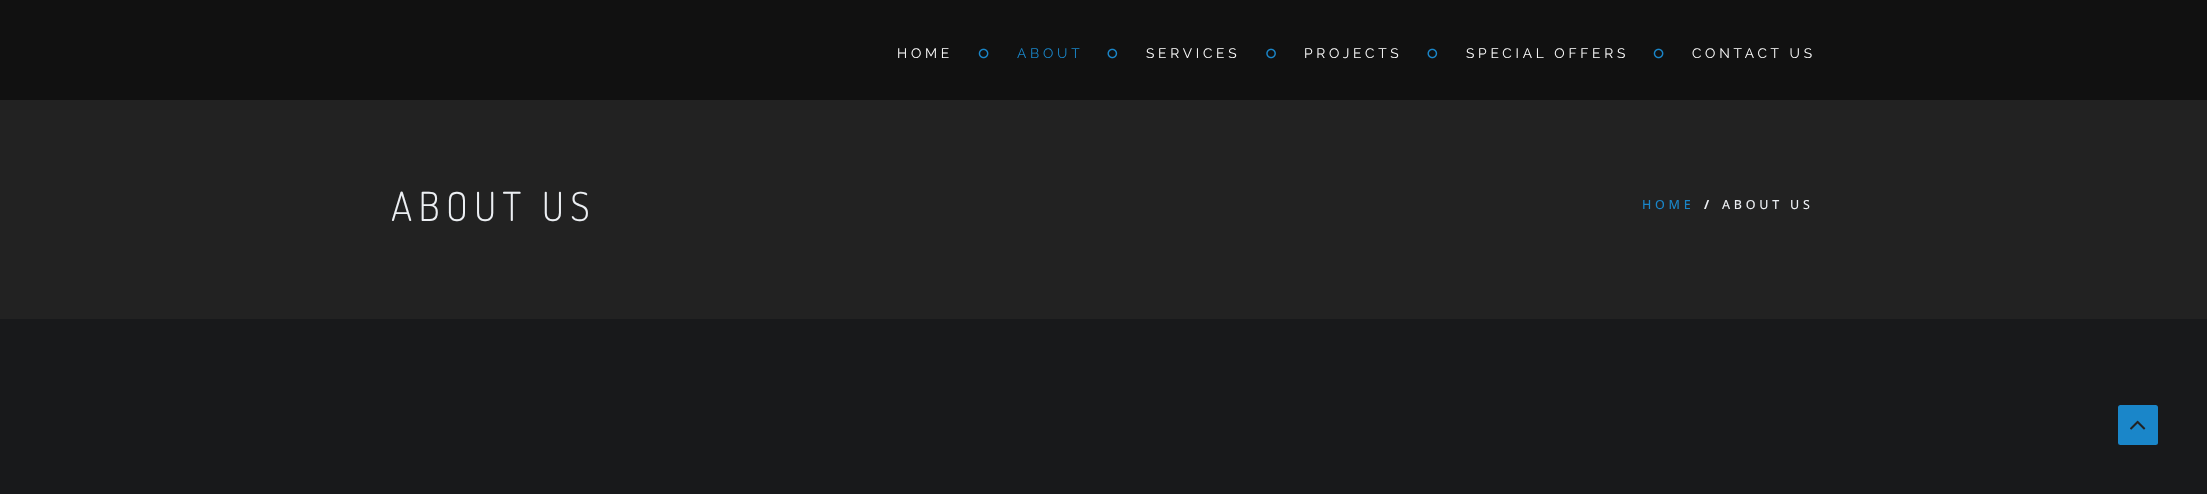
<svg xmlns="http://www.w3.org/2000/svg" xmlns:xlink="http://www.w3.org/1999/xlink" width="2207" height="494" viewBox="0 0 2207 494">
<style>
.cls-1{font:13.75px Raleway;letter-spacing:3.75px;fill:#ffffff}
.cls-2{font:13.75px Raleway;letter-spacing:3.75px;fill:#1a86c9}
.cls-3{font:300 40px Dosis;letter-spacing:6.25px;fill:#eceff3}
.cls-4{font:500 12.5px Open Sans;letter-spacing:3.75px;fill:#1a86c9}
.cls-5{font:bold 12.5px Open Sans;letter-spacing:3.75px;fill:#eceff3}
.cls-6{font:500 12.5px Open Sans;letter-spacing:3.75px;fill:#eceff3}
</style>
<rect width="100%" height="100%" fill="#222222"/>
<rect fill="#111111" x="0" y="0" width="2207" height="100"/>
<image xlink:href="image0.png" x="978" y="48" width="11" height="11"/>
<image xlink:href="image1.png" x="1107" y="48" width="11" height="11"/>
<image xlink:href="image2.png" x="1266" y="48" width="10" height="11"/>
<image xlink:href="image1.png" x="1427" y="48" width="11" height="11"/>
<image xlink:href="image0.png" x="1653" y="48" width="11" height="11"/>
<rect fill="#18191b" x="0" y="319" width="2207" height="175"/>
<rect fill="#1a86c9" x="2118" y="405" width="40" height="40" rx="2.5"/>
<image xlink:href="image3.png" x="2130" y="420" width="16" height="10"/>
<text class="cls-1" x="897" y="58">HOME</text>
<text class="cls-2" x="1017" y="58">ABOUT</text>
<text class="cls-1" x="1146" y="58">SERVICES</text>
<text class="cls-1" x="1304" y="58">PROJECTS</text>
<text class="cls-1" x="1466" y="58">SPECIAL OFFERS</text>
<text class="cls-1" x="1692" y="58">CONTACT US</text>
<text class="cls-3" x="391" y="221">ABOUT US</text>
<text class="cls-4" x="1642" y="209">HOME</text>
<text class="cls-5" x="1704" y="209">/</text>
<text class="cls-6" x="1722" y="209">ABOUT US</text>
</svg>
